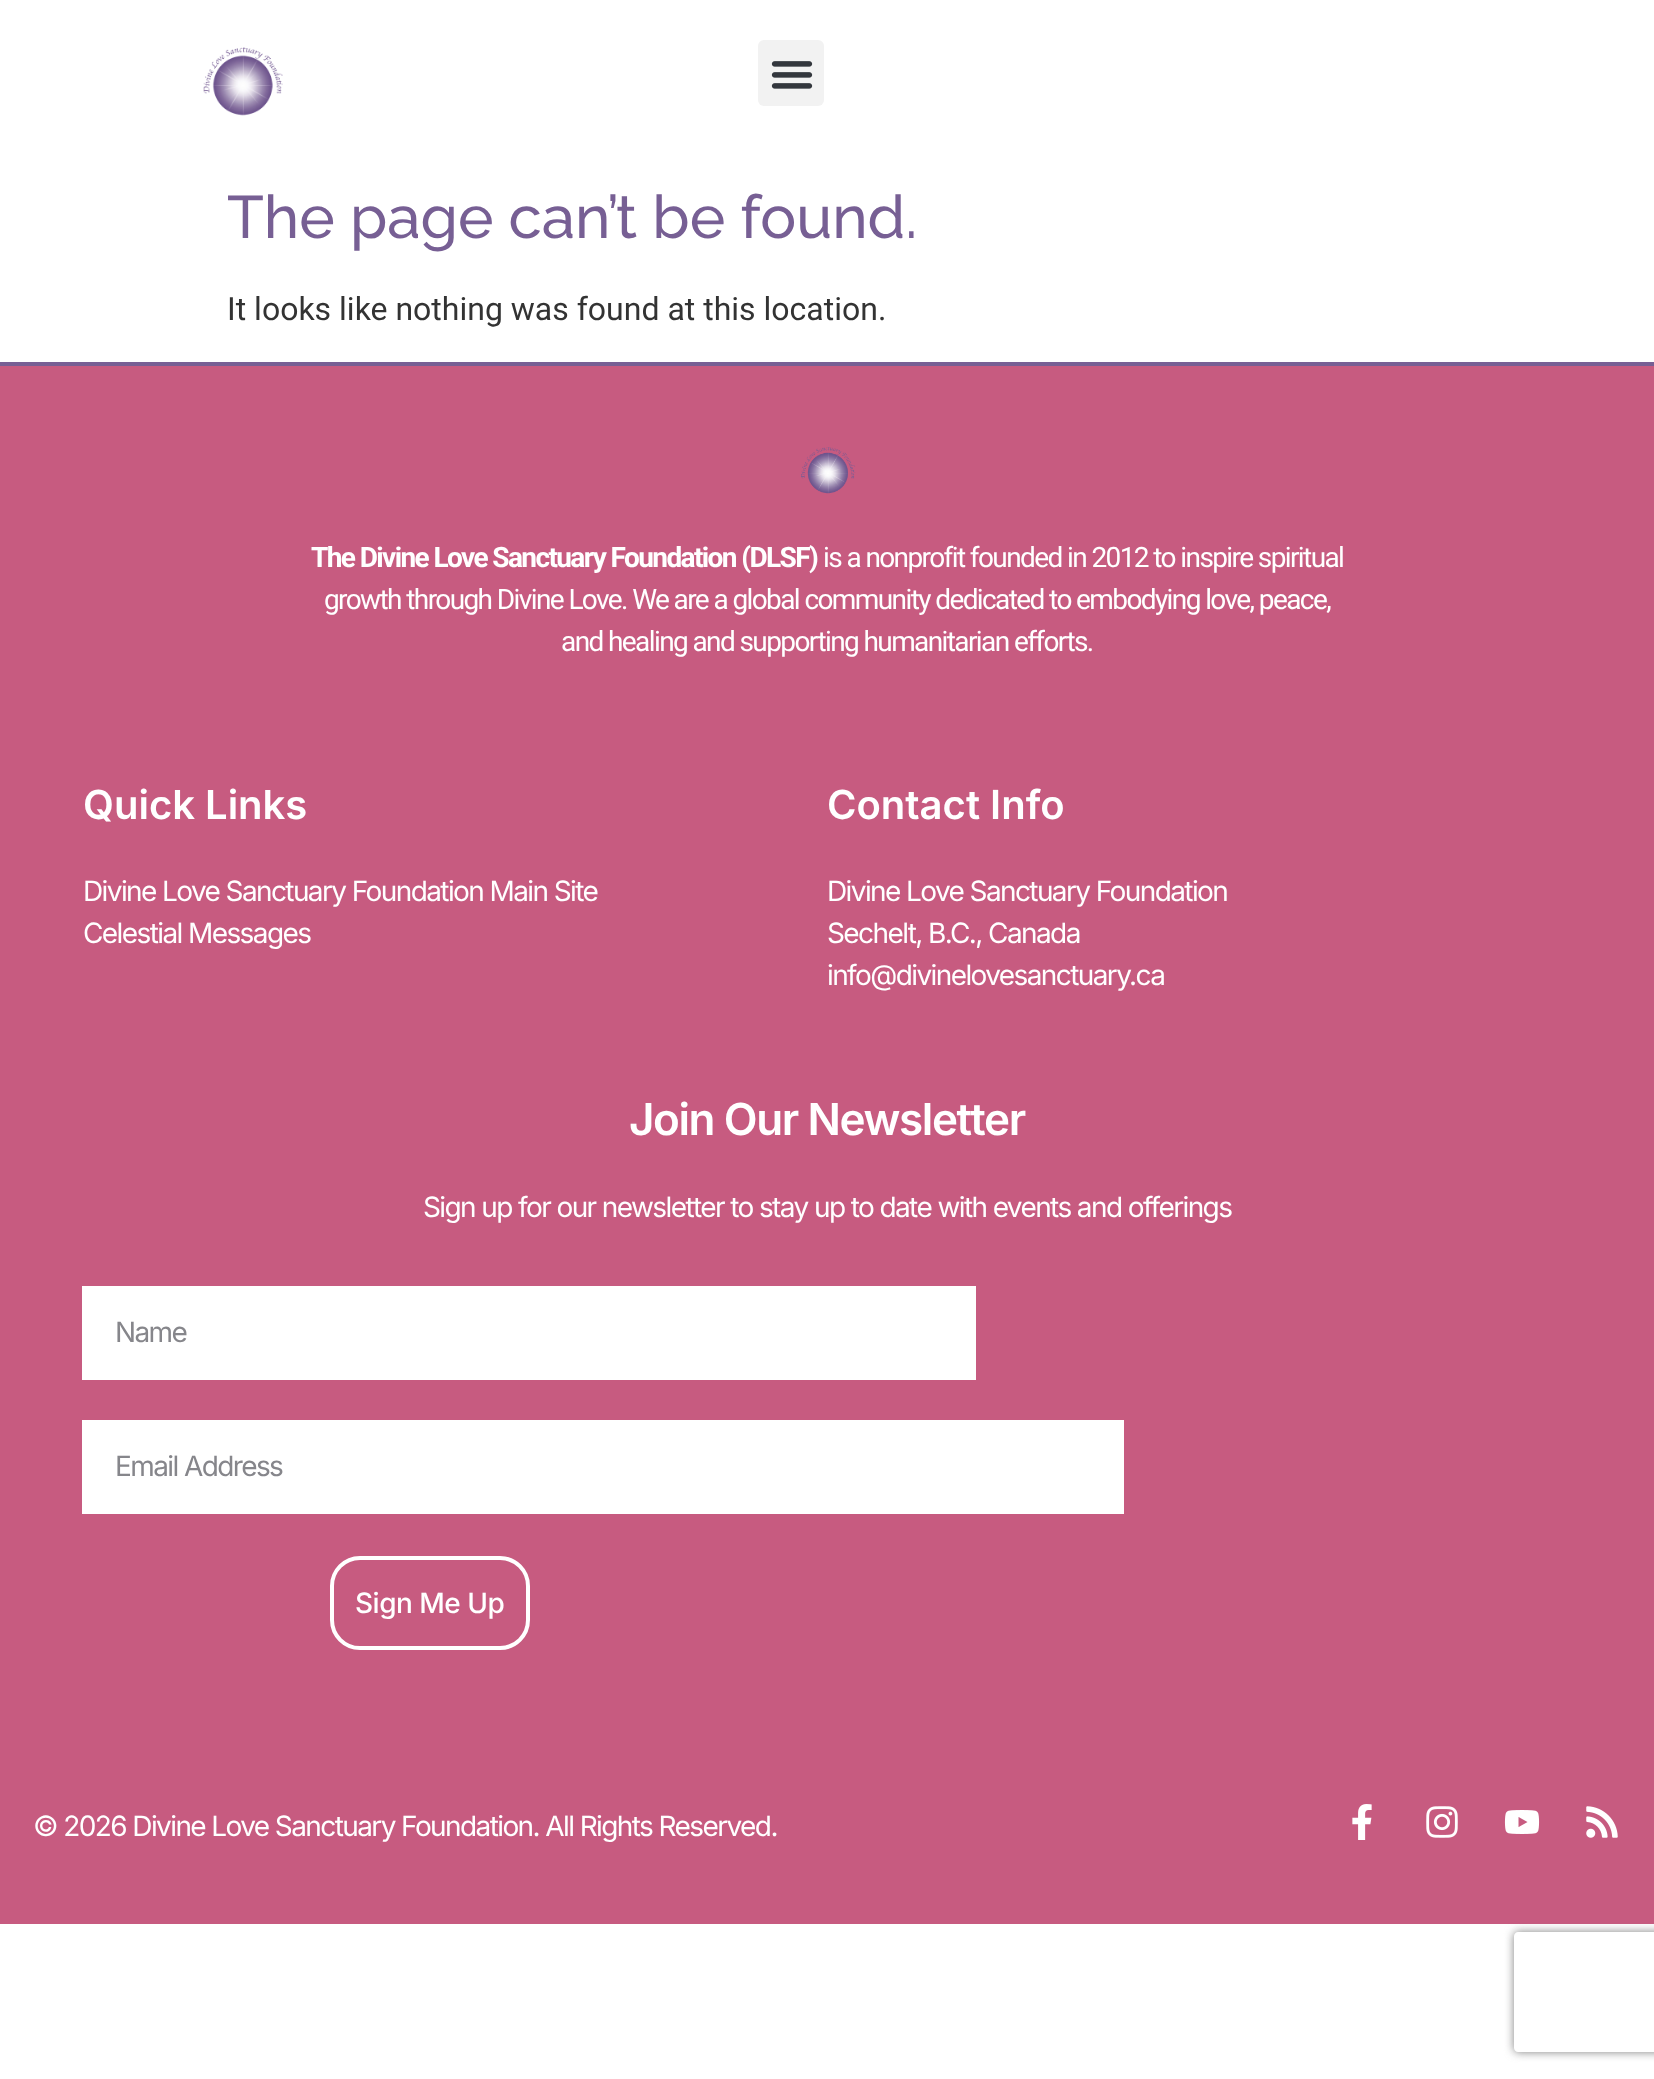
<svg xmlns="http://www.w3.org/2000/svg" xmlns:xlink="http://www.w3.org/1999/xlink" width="1654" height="2079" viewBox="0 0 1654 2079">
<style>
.cls-1{font:500 60px Raleway;fill:#775f94}
.cls-2{font:32px Roboto;fill:#333333}
.cls-3{font:bold 28px Roboto;letter-spacing:-1.6px;fill:#ffffff}
.cls-4{font:28px Roboto;letter-spacing:-1.6px;fill:#ffffff}
.cls-5{font:600 40px Inter;fill:#ffffff}
.cls-6{font:28px Inter;letter-spacing:-1.6px;fill:#ffffff}
.cls-7{font:600 44px Inter;letter-spacing:-1.4px;fill:#ffffff}
.cls-8{font:28px Inter;letter-spacing:-1.6px;fill:#86868b}
.cls-9{font:500 28px Inter;letter-spacing:-0.5px;fill:#ffffff}
</style>
<defs>
<clipPath id="clip1"><path d="M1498 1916H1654V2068H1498ZM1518 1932H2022C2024 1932 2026 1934 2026 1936V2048C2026 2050 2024 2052 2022 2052H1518C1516 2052 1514 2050 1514 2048V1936C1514 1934 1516 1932 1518 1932Z" clip-rule="evenodd"/></clipPath>
</defs>
<rect width="100%" height="100%" fill="#ffffff"/>
<image xlink:href="image0.png" x="203" y="47" width="80" height="69"/>
<rect fill="#f2f2f2" x="758" y="40" width="66" height="66" rx="6"/>
<image xlink:href="image1.png" x="771" y="61" width="42" height="28"/>
<rect fill="#c75b80" x="0" y="366" width="1654" height="1558"/>
<rect fill="#775f94" x="0" y="362" width="1654" height="4"/>
<image xlink:href="image2.png" x="801" y="447" width="55" height="47"/>
<rect fill="#ffffff" x="82" y="1286" width="894" height="94"/>
<rect fill="#ffffff" x="82" y="1420" width="1042" height="94"/>
<rect fill="none" stroke="#ffffff" stroke-width="4" x="332" y="1558" width="196" height="90" rx="28"/>
<g clip-path="url(#clip1)">
<rect fill="#808080" filter="blur(5px)" x="1514" y="1932" width="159" height="120" rx="4"/>
</g>
<image xlink:href="image3.png" x="1352" y="1804" width="20" height="36"/>
<image xlink:href="image4.png" x="1426" y="1806" width="32" height="32"/>
<image xlink:href="image5.png" x="1504" y="1810" width="36" height="24"/>
<image xlink:href="image6.png" x="1586" y="1806" width="32" height="32"/>
<text class="cls-1" x="227" y="238">The page can’t be found.</text>
<text class="cls-2" x="227" y="320">It looks like nothing was found at this location.</text>
<text class="cls-3" x="311" y="567">The Divine Love Sanctuary Foundation (DLSF)</text>
<text class="cls-4" x="823" y="567">is a nonprofit founded in 2012 to inspire spiritual</text>
<text class="cls-4" x="324" y="609">growth through Divine Love. We are a global community dedicated to embodying love, peace,</text>
<text class="cls-4" x="561" y="651">and healing and supporting humanitarian efforts.</text>
<text class="cls-5" x="83" y="819">Quick Links</text>
<text class="cls-6"><tspan x="83" y="901">Divine Love Sanctuary Foundation Main Site</tspan><tspan x="83" y="943">Celestial Messages</tspan></text>
<text class="cls-5" x="827" y="819">Contact Info</text>
<text class="cls-6"><tspan x="827" y="901">Divine Love Sanctuary Foundation</tspan><tspan x="827" y="943">Sechelt, B.C., Canada</tspan><tspan x="827" y="985">info@divinelovesanctuary.ca</tspan></text>
<text class="cls-7" x="629" y="1135">Join Our Newsletter</text>
<text class="cls-6" x="423" y="1217">Sign up for our newsletter to stay up to date with events and offerings</text>
<text class="cls-8" x="115" y="1342">Name</text>
<text class="cls-8" x="115" y="1476">Email Address</text>
<text class="cls-9" x="355" y="1613">Sign Me Up</text>
<text class="cls-6" x="33" y="1836">© 2026 Divine Love Sanctuary Foundation. All Rights Reserved.</text>
</svg>
